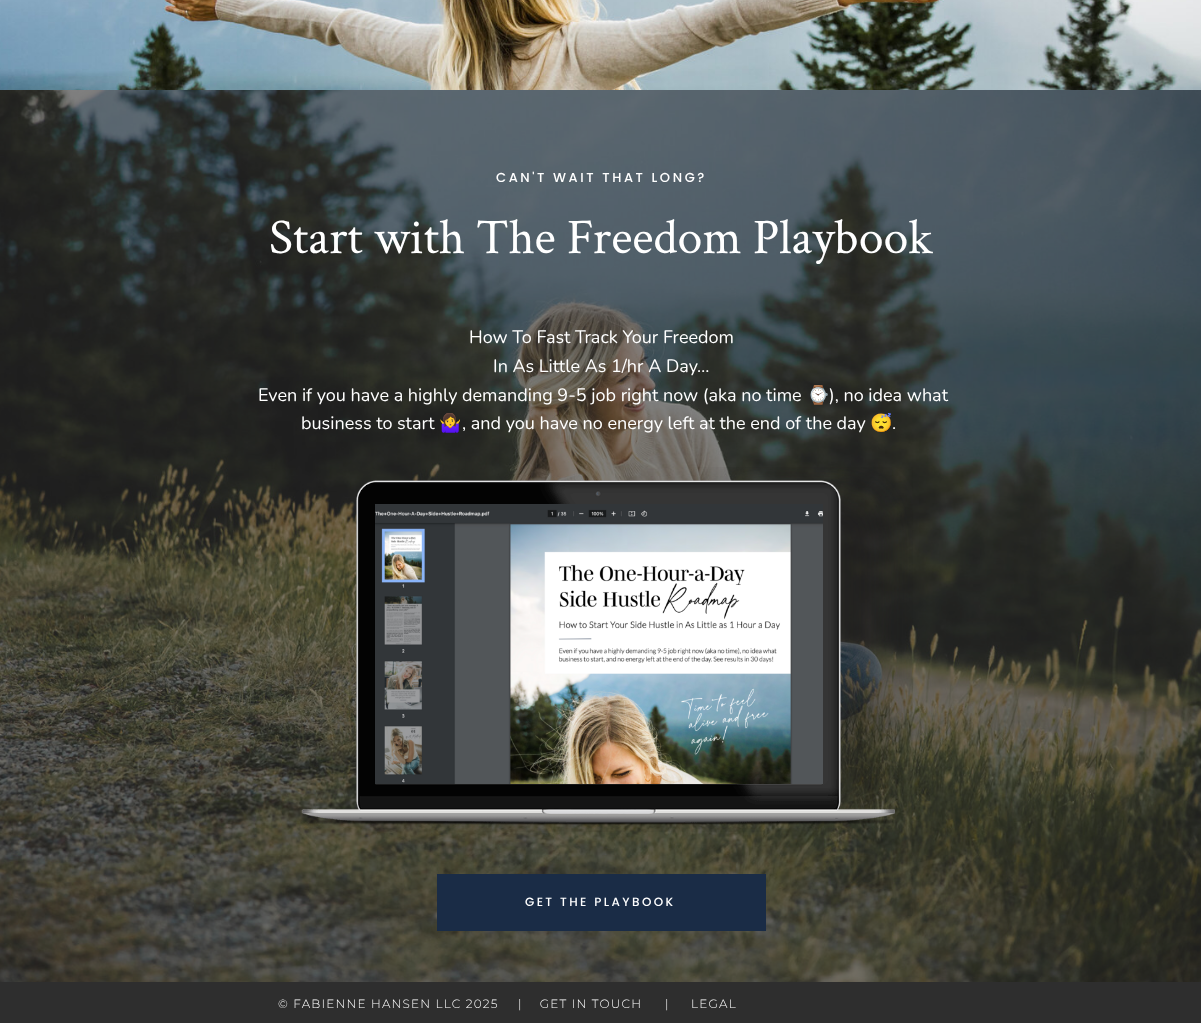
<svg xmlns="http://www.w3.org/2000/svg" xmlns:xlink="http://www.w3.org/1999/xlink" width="1201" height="1023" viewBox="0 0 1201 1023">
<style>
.cls-1{font:500 13px Poppins;letter-spacing:2.6px;fill:#ffffff}
.cls-2{font:50px Crimson Text;fill:#ffffff}
.cls-3{font:200 18px Nunito;fill:#ffffff}
.cls-4{font:18px Noto Color Emoji;fill:#ffffff}
.cls-5{font:500 12px Poppins;letter-spacing:2.4px;fill:#ffffff}
.cls-6{font:300 12px Montserrat;letter-spacing:1.2px;fill:#ffffff}
</style>
<rect width="100%" height="100%" fill="#333333"/>
<image xlink:href="image0.png" x="0" y="0" width="1201" height="90"/>
<image xlink:href="image1.png" x="0" y="90" width="1201" height="892"/>
<image xlink:href="image2.png" x="301" y="467" width="612" height="365"/>
<image xlink:href="image3.png" x="375" y="504" width="448" height="280"/>
<rect fill="#1a2c46" x="437" y="874" width="329" height="57"/>
<rect fill="#2e2e2e" x="0" y="982" width="1201" height="41"/>
<text class="cls-1" x="496" y="182">CAN'T WAIT THAT LONG?</text>
<text class="cls-2" x="269" y="253">Start with The Freedom Playbook</text>
<text class="cls-3" x="469" y="343">How To Fast Track Your Freedom</text>
<text class="cls-3" x="493" y="372">In As Little As 1/hr A Day…</text>
<text class="cls-3" x="258" y="401">Even if you have a highly demanding 9-5 job right now (aka no time</text>
<text class="cls-4" x="807" y="401">⌚</text>
<text class="cls-3" x="829" y="401">), no idea what</text>
<text class="cls-3" x="301" y="429">business to start</text>
<text class="cls-4" x="439" y="429">🤷‍♀️</text>
<text class="cls-3" x="462" y="429">, and you have no energy left at the end of the day</text>
<text class="cls-4" x="870" y="429">😴</text>
<text class="cls-3" x="892" y="429">.</text>
<text class="cls-5" x="525" y="906">GET THE PLAYBOOK</text>
<text class="cls-6" x="278" y="1008">© FABIENNE HANSEN LLC 2025</text>
<text class="cls-6" xml:space="preserve" x="518" y="1008">|    GET IN TOUCH</text>
<text class="cls-6" xml:space="preserve" x="665" y="1008">|     LEGAL</text>
</svg>
